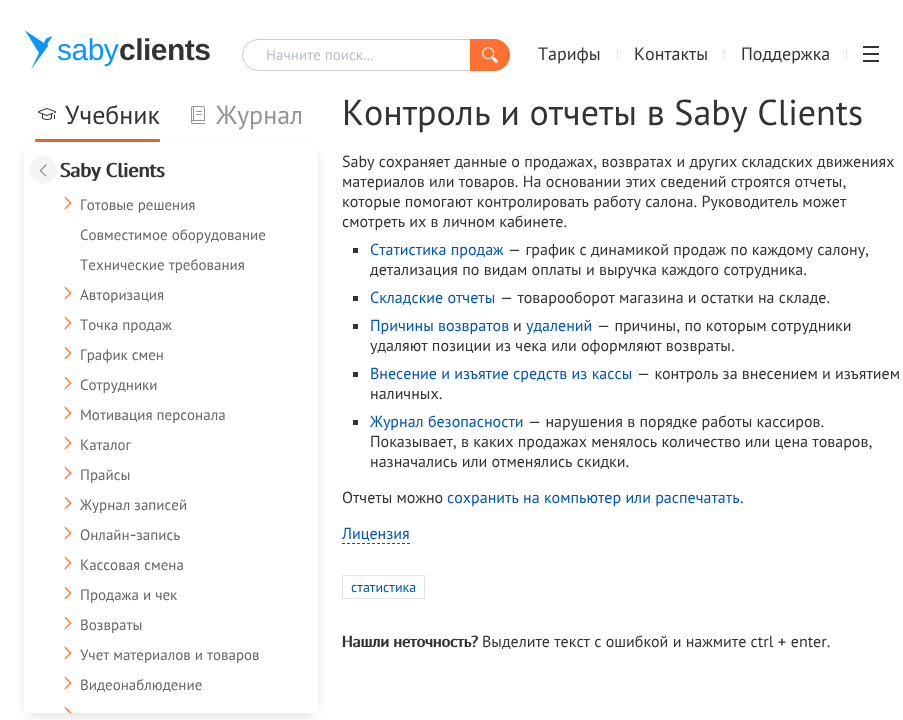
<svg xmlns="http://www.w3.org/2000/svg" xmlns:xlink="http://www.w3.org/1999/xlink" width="903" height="720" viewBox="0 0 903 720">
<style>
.cls-1{font:30px Liberation Sans;letter-spacing:-0.5px;fill:#0c94ff}
.cls-2{font:bold 30px Liberation Sans;letter-spacing:-0.5px;fill:#333333}
.cls-3{font:15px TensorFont;fill:#b8bdcb}
.cls-4{font:18px TensorFont;fill:#333333}
.cls-5{font:26px TensorFont;fill:#333333}
.cls-6{font:26px TensorFont;fill:#949494}
.cls-7{font:bold 20px TensorFont;fill:#333333}
.cls-8{font:15px TensorFont;fill:#666666}
.cls-9{font:36px TensorFont;fill:#333333}
.cls-10{font:16px TensorFont;fill:#333333}
.cls-11{font:16px TensorFont;fill:#0055bb}
.cls-12{font:14px TensorFont;fill:#0055bb}
.cls-13{font:bold 16px TensorFont;fill:#333333}
</style>
<defs>
<clipPath id="clip1"><path d="M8 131H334V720H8ZM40 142H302C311 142 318 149 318 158V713H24V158C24 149 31 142 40 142Z" clip-rule="evenodd"/></clipPath>
</defs>
<rect width="100%" height="100%" fill="#ffffff"/>
<path fill="#0c94ff" d="M39 53L31 69.5L48 46L47.5 43.5L52.5 36L46 38.5V39V38.5L44 43L25 30.5Z"/>
<rect fill="none" stroke="#cccccc" x="242.5" y="39.5" width="259" height="31" rx="15.5"/>
<path fill="#ff7033" d="M470 39H494C503 39 510 46 510 55C510 64 503 71 494 71H470Z"/>
<image xlink:href="image0.png" x="482" y="47" width="16" height="16"/>
<path fill="none" stroke="#cccccc" stroke-dasharray="1 1" d="M617.5 50V60"/>
<path fill="none" stroke="#cccccc" stroke-dasharray="1 1" d="M724.5 50V60"/>
<path fill="none" stroke="#cccccc" stroke-dasharray="1 1" d="M846.5 50V60"/>
<rect fill="#333333" x="863" y="46" width="16" height="2"/>
<rect fill="#333333" x="863" y="53" width="16" height="2"/>
<rect fill="#333333" x="863" y="60" width="16" height="2"/>
<image xlink:href="image1.png" x="38" y="108" width="18" height="12"/>
<rect fill="#e4662f" x="35" y="139" width="125" height="3" rx="1"/>
<image xlink:href="image2.png" x="191" y="106" width="14" height="18"/>
<g clip-path="url(#clip1)">
<rect fill="#000000" fill-opacity="0.1" filter="blur(5px)" x="24" y="147" width="294" height="571" rx="16"/>
</g>
<circle fill="#f5f5f5" cx="43" cy="170" r="14"/>
<image xlink:href="image3.png" x="39" y="164" width="8" height="13"/>
<image xlink:href="image4.png" x="64" y="196" width="8" height="14"/>
<image xlink:href="image4.png" x="64" y="286" width="8" height="14"/>
<image xlink:href="image4.png" x="64" y="316" width="8" height="14"/>
<image xlink:href="image4.png" x="64" y="346" width="8" height="14"/>
<image xlink:href="image4.png" x="64" y="376" width="8" height="14"/>
<image xlink:href="image4.png" x="64" y="406" width="8" height="14"/>
<image xlink:href="image4.png" x="64" y="436" width="8" height="14"/>
<image xlink:href="image4.png" x="64" y="466" width="8" height="14"/>
<image xlink:href="image4.png" x="64" y="496" width="8" height="14"/>
<image xlink:href="image4.png" x="64" y="526" width="8" height="14"/>
<image xlink:href="image4.png" x="64" y="556" width="8" height="14"/>
<image xlink:href="image4.png" x="64" y="586" width="8" height="14"/>
<image xlink:href="image4.png" x="64" y="616" width="8" height="14"/>
<image xlink:href="image4.png" x="64" y="646" width="8" height="14"/>
<image xlink:href="image4.png" x="64" y="676" width="8" height="14"/>
<image xlink:href="image5.png" x="64" y="706" width="8" height="7"/>
<rect fill="#333333" x="353" y="248" width="5" height="5"/>
<rect fill="#333333" x="353" y="296" width="5" height="5"/>
<rect fill="#333333" x="353" y="324" width="5" height="5"/>
<rect fill="#333333" x="353" y="372" width="5" height="5"/>
<rect fill="#333333" x="353" y="420" width="5" height="5"/>
<path fill="none" stroke="#0055bb" stroke-dasharray="3 2" d="M342 543.5H410"/>
<rect fill="none" stroke="#e4e4e4" x="342.5" y="575.5" width="82" height="23"/>
<text class="cls-1" x="57" y="60">saby</text>
<text class="cls-2" x="119" y="60">clients</text>
<text class="cls-3" x="266" y="60">Начните поиск...</text>
<text class="cls-4" x="538" y="60">Тарифы</text>
<text class="cls-4" x="634" y="60">Контакты</text>
<text class="cls-4" x="741" y="60">Поддержка</text>
<text class="cls-5" x="65" y="124">Учебник</text>
<text class="cls-6" x="216" y="124">Журнал</text>
<text class="cls-7" x="60" y="177">Saby Clients</text>
<text class="cls-8" x="80" y="210">Готовые решения</text>
<text class="cls-8" x="80" y="240">Совместимое оборудование</text>
<text class="cls-8" x="80" y="270">Технические требования</text>
<text class="cls-8" x="80" y="300">Авторизация</text>
<text class="cls-8" x="80" y="330">Точка продаж</text>
<text class="cls-8" x="80" y="360">График смен</text>
<text class="cls-8" x="80" y="390">Сотрудники</text>
<text class="cls-8" x="80" y="420">Мотивация персонала</text>
<text class="cls-8" x="80" y="450">Каталог</text>
<text class="cls-8" x="80" y="480">Прайсы</text>
<text class="cls-8" x="80" y="510">Журнал записей</text>
<text class="cls-8" x="80" y="540">Онлайн-запись</text>
<text class="cls-8" x="80" y="570">Кассовая смена</text>
<text class="cls-8" x="80" y="600">Продажа и чек</text>
<text class="cls-8" x="80" y="630">Возвраты</text>
<text class="cls-8" x="80" y="660">Учет материалов и товаров</text>
<text class="cls-8" x="80" y="690">Видеонаблюдение</text>
<text class="cls-9" x="342" y="125">Контроль и отчеты в Saby Clients</text>
<text class="cls-10"><tspan x="342" y="167">Saby сохраняет данные о продажах, возвратах и других складских движениях</tspan><tspan x="342" y="187">материалов или товаров. На основании этих сведений строятся отчеты,</tspan><tspan x="342" y="207">которые помогают контролировать работу салона. Руководитель может</tspan><tspan x="342" y="227">смотреть их в личном кабинете.</tspan></text>
<text class="cls-11" x="370" y="255">Статистика продаж</text>
<text class="cls-10" x="508" y="255">— график с динамикой продаж по каждому салону,</text>
<text class="cls-10" x="370" y="275">детализация по видам оплаты и выручка каждого сотрудника.</text>
<text class="cls-11" x="370" y="303">Складские отчеты</text>
<text class="cls-10" x="500" y="303">— товарооборот магазина и остатки на складе.</text>
<text class="cls-11" x="370" y="331">Причины возвратов</text>
<text class="cls-10" x="513" y="331">и</text>
<text class="cls-11" x="526" y="331">удалений</text>
<text class="cls-10" x="597" y="331">— причины, по которым сотрудники</text>
<text class="cls-10" x="370" y="351">удаляют позиции из чека или оформляют возвраты.</text>
<text class="cls-11" x="370" y="379">Внесение и изъятие средств из кассы</text>
<text class="cls-10" x="637" y="379">— контроль за внесением и изъятием</text>
<text class="cls-10" x="370" y="399">наличных.</text>
<text class="cls-11" x="370" y="427">Журнал безопасности</text>
<text class="cls-10" x="528" y="427">— нарушения в порядке работы кассиров.</text>
<text class="cls-10"><tspan x="370" y="447">Показывает, в каких продажах менялось количество или цена товаров,</tspan><tspan x="370" y="467">назначались или отменялись скидки.</tspan></text>
<text class="cls-10" x="342" y="503">Отчеты можно</text>
<text class="cls-11" x="447" y="503">сохранить на компьютер или распечатать</text>
<text class="cls-10" x="740" y="503">.</text>
<text class="cls-11" x="342" y="539">Лицензия</text>
<text class="cls-12" x="351" y="592">статистика</text>
<text class="cls-13" x="342" y="647">Нашли неточность?</text>
<text class="cls-10" x="482" y="647">Выделите текст с ошибкой и нажмите ctrl + enter.</text>
</svg>
